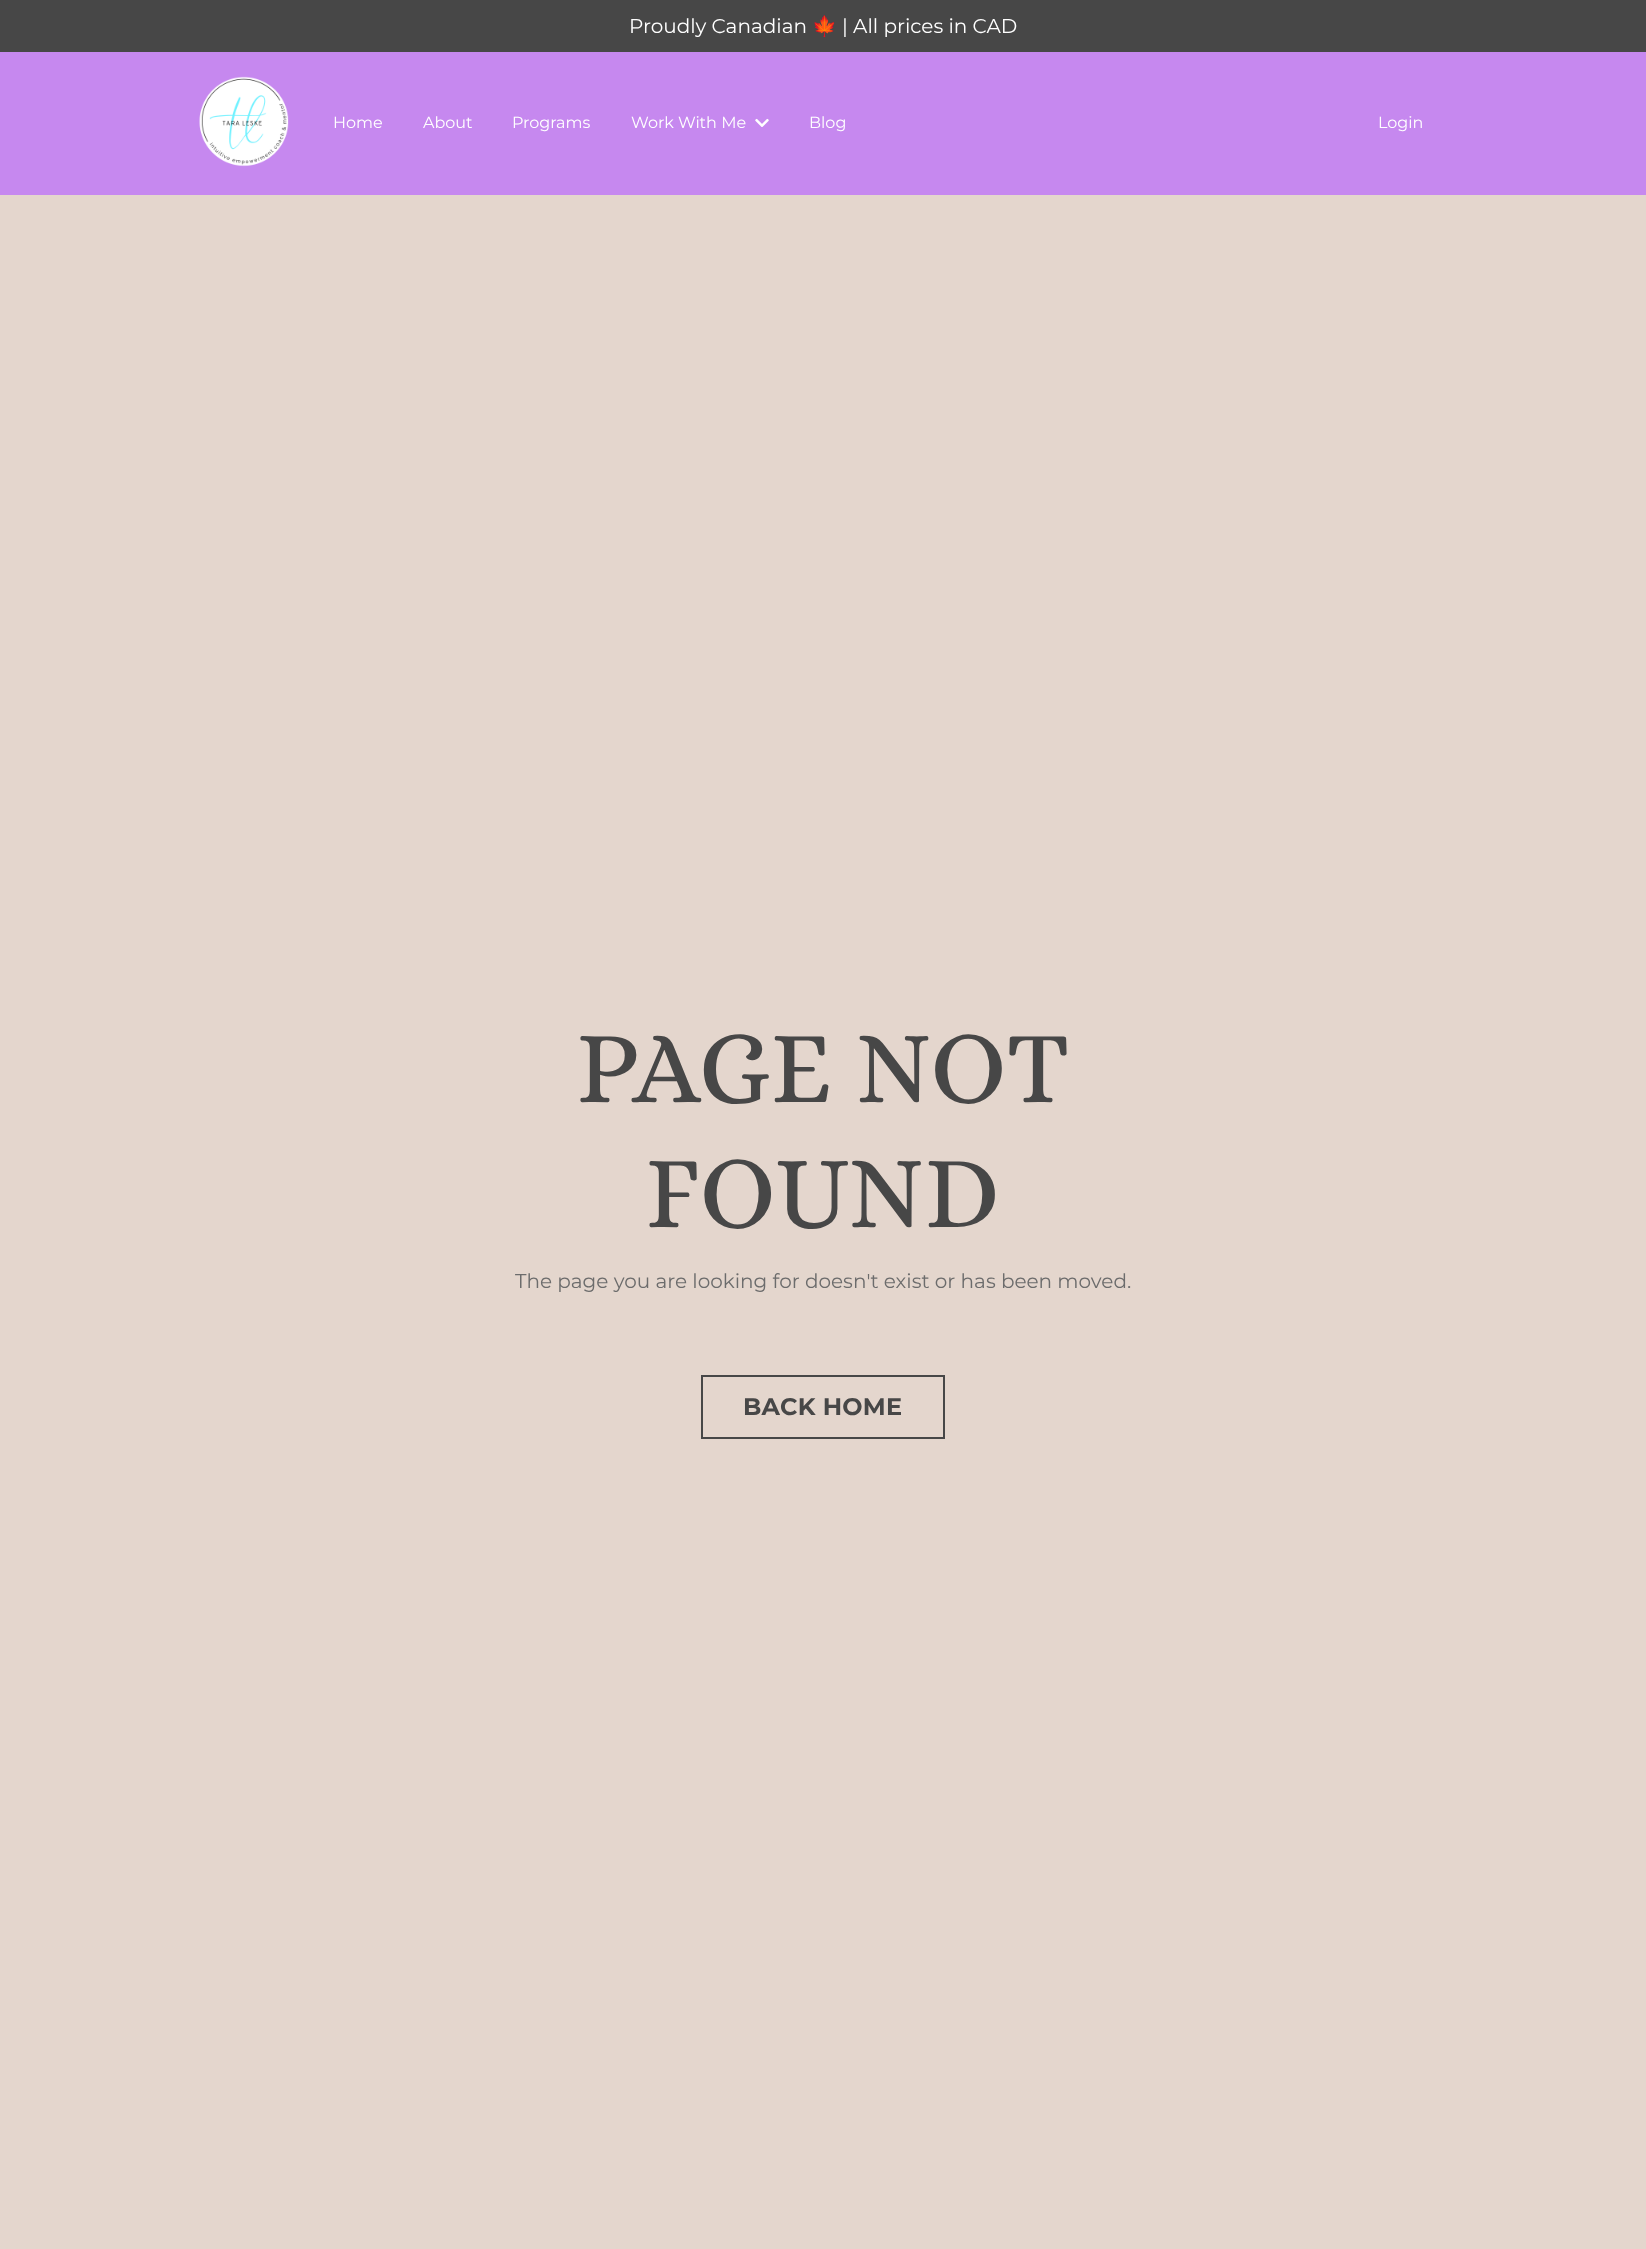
<svg xmlns="http://www.w3.org/2000/svg" xmlns:xlink="http://www.w3.org/1999/xlink" width="1646" height="2249" viewBox="0 0 1646 2249">
<style>
.cls-1{font:20px Montserrat;fill:#ffffff}
.cls-2{font:20px Noto Color Emoji;fill:#ffffff}
.cls-3{font:16px Montserrat;fill:#ffffff}
.cls-4{font:104px Alice;fill:#474747}
.cls-5{font:20px Montserrat;fill:#6c6c6c}
.cls-6{font:bold 24px Montserrat;letter-spacing:0.25px;fill:#474747}
</style>
<rect width="100%" height="100%" fill="#c688ef"/>
<rect fill="#474747" x="0" y="0" width="1646" height="52"/>
<image xlink:href="image0.png" x="199" y="76" width="90" height="91"/>
<image xlink:href="image1.png" x="755" y="118" width="14" height="9"/>
<rect fill="#e4d6cd" x="0" y="195" width="1646" height="2054"/>
<rect fill="none" stroke="#474747" stroke-width="2" x="702" y="1376" width="242" height="62"/>
<text class="cls-1" x="629" y="33">Proudly Canadian</text>
<text class="cls-2" x="812" y="33">🍁</text>
<text class="cls-1" x="842" y="33">| All prices in CAD</text>
<text class="cls-3" x="333" y="128">Home</text>
<text class="cls-3" x="423" y="128">About</text>
<text class="cls-3" x="512" y="128">Programs</text>
<text class="cls-3" x="631" y="128">Work With Me</text>
<text class="cls-3" x="809" y="128">Blog</text>
<text class="cls-3" x="1378" y="128">Login</text>
<text class="cls-4" x="576" y="1102">PAGE NOT</text>
<text class="cls-4" x="645" y="1227">FOUND</text>
<text class="cls-5" x="515" y="1288">The page you are looking for doesn't exist or has been moved.</text>
<text class="cls-6" x="743" y="1415">BACK HOME</text>
</svg>
